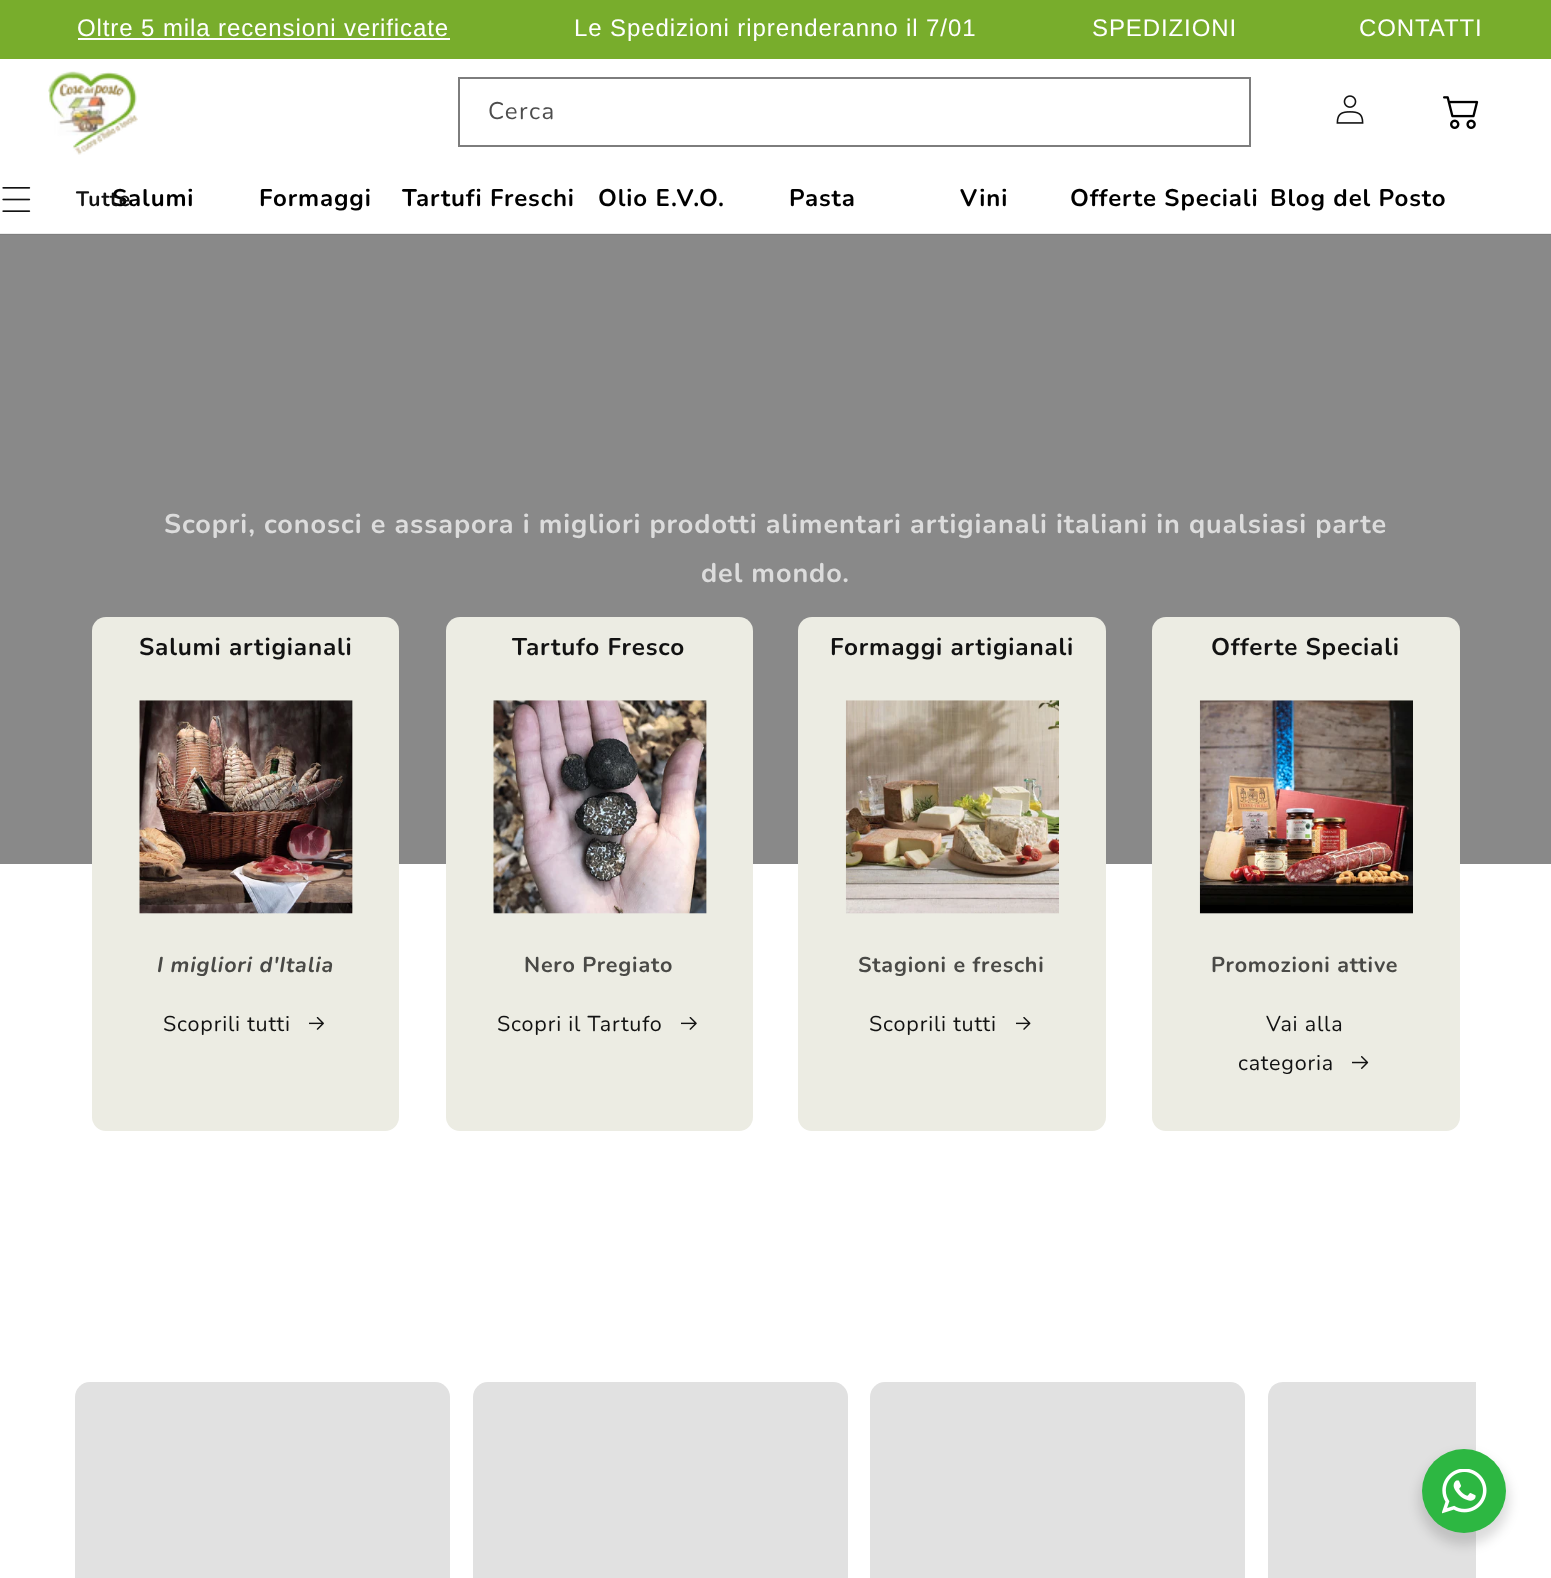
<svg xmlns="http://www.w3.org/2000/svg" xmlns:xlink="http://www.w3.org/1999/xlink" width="1551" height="1578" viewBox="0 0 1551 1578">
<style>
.cls-1{font:24px Liberation Sans;letter-spacing:0.9px;fill:#ffffff}
.cls-2{font:200 24px Nunito;letter-spacing:1.5px;fill:#4d4d4d}
.cls-3{font:bold 24px Nunito;letter-spacing:0.9px;fill:#000000}
.cls-4{font:bold 21px Nunito;letter-spacing:0.9px;fill:#121212}
.cls-5{font:bold 27px Nunito;letter-spacing:0.9px;fill:#dcdcdc}
.cls-6{font:bold 24.25px Nunito;letter-spacing:0.8px;fill:#121212}
.cls-7{font:italic bold 21.5px Nunito;letter-spacing:0.8px;fill:#494946}
.cls-8{font:200 21.5px Nunito;letter-spacing:0.8px;fill:#121212}
.cls-9{font:bold 21.5px Nunito;letter-spacing:0.8px;fill:#494946}
</style>
<rect width="100%" height="100%" fill="#ffffff"/>
<rect fill="#ececec" x="0" y="233" width="1551" height="1"/>
<rect fill="#78ad2c" x="0" y="0" width="1551" height="59"/>
<rect fill="#ffffff" x="78" y="38" width="372" height="2"/>
<image xlink:href="image0.png" x="48" y="71" width="90" height="84"/>
<rect fill="none" stroke="#7d7d7d" stroke-width="2" x="459" y="78" width="791" height="68"/>
<image xlink:href="image1.png" x="1336" y="95" width="28" height="29"/>
<image xlink:href="image2.png" x="1443" y="96" width="36" height="33"/>
<image xlink:href="image3.png" x="2" y="187" width="29" height="25"/>
<rect fill="#898989" x="0" y="235" width="1551" height="629"/>
<rect fill="#7f7f7f" x="0" y="234" width="1551" height="1"/>
<rect fill="#ecece3" x="92" y="617" width="307" height="514" rx="14"/>
<image xlink:href="image4.png" x="139" y="700" width="214" height="214"/>
<image xlink:href="image5.png" x="309" y="1017" width="15" height="13"/>
<rect fill="#ecece3" x="446" y="617" width="307" height="514" rx="14"/>
<image xlink:href="image6.png" x="493" y="700" width="214" height="214"/>
<image xlink:href="image7.png" x="681" y="1017" width="16" height="13"/>
<rect fill="#ecece3" x="798" y="617" width="308" height="514" rx="14"/>
<image xlink:href="image8.png" x="845" y="700" width="214" height="214"/>
<image xlink:href="image9.png" x="1016" y="1017" width="15" height="13"/>
<rect fill="#ecece3" x="1152" y="617" width="308" height="514" rx="14"/>
<image xlink:href="image10.png" x="1199" y="700" width="214" height="214"/>
<image xlink:href="image11.png" x="1352" y="1056" width="17" height="13"/>
<rect fill="#e1e1e1" x="75" y="1382" width="375" height="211" rx="15"/>
<rect fill="#e1e1e1" x="473" y="1382" width="375" height="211" rx="15"/>
<rect fill="#e1e1e1" x="870" y="1382" width="375" height="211" rx="15"/>
<path fill="#e1e1e1" d="M1283 1382H1476V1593H1283C1274.5 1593 1268 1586.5 1268 1578V1397C1268 1388.5 1274.5 1382 1283 1382Z"/>
<rect fill="#000000" fill-opacity="0.14" filter="blur(6px)" x="1419" y="1455" width="90" height="90" rx="45"/>
<circle fill="#2db742" cx="1464" cy="1491" r="42"/>
<image xlink:href="image12.png" x="1442" y="1469" width="45" height="45"/>
<text class="cls-1" x="77" y="36">Oltre 5 mila recensioni verificate</text>
<text class="cls-1" x="574" y="36">Le Spedizioni riprenderanno il 7/01</text>
<text class="cls-1" x="1092" y="36">SPEDIZIONI</text>
<text class="cls-1" x="1359" y="36">CONTATTI</text>
<text class="cls-2" x="488" y="119">Cerca</text>
<text class="cls-3" x="112" y="206">Salumi</text>
<text class="cls-4" x="76" y="206">Tutte</text>
<text class="cls-3" x="259" y="206">Formaggi</text>
<text class="cls-3" x="402" y="206">Tartufi Freschi</text>
<text class="cls-3" x="598" y="206">Olio E.V.O.</text>
<text class="cls-3" x="789" y="206">Pasta</text>
<text class="cls-3" x="960" y="206">Vini</text>
<text class="cls-3" x="1070" y="206">Offerte Speciali</text>
<text class="cls-3" x="1270" y="206">Blog del Posto</text>
<text class="cls-5" x="164" y="533">Scopri, conosci e assapora i migliori prodotti alimentari artigianali italiani in qualsiasi parte</text>
<text class="cls-5" x="701" y="582">del mondo.</text>
<text class="cls-6" x="139" y="655">Salumi artigianali</text>
<text class="cls-7" x="157" y="972">I migliori d'Italia</text>
<text class="cls-8" x="163" y="1031">Scoprili tutti</text>
<text class="cls-6" x="512" y="655">Tartufo Fresco</text>
<text class="cls-9" x="524" y="972">Nero Pregiato</text>
<text class="cls-8" x="497" y="1031">Scopri il Tartufo</text>
<text class="cls-6" x="830" y="655">Formaggi artigianali</text>
<text class="cls-9" x="858" y="972">Stagioni e freschi</text>
<text class="cls-8" x="869" y="1031">Scoprili tutti</text>
<text class="cls-6" x="1211" y="655">Offerte Speciali</text>
<text class="cls-9" x="1211" y="972">Promozioni attive</text>
<text class="cls-8" x="1266" y="1031">Vai alla</text>
<text class="cls-8" x="1238" y="1070">categoria</text>
</svg>
